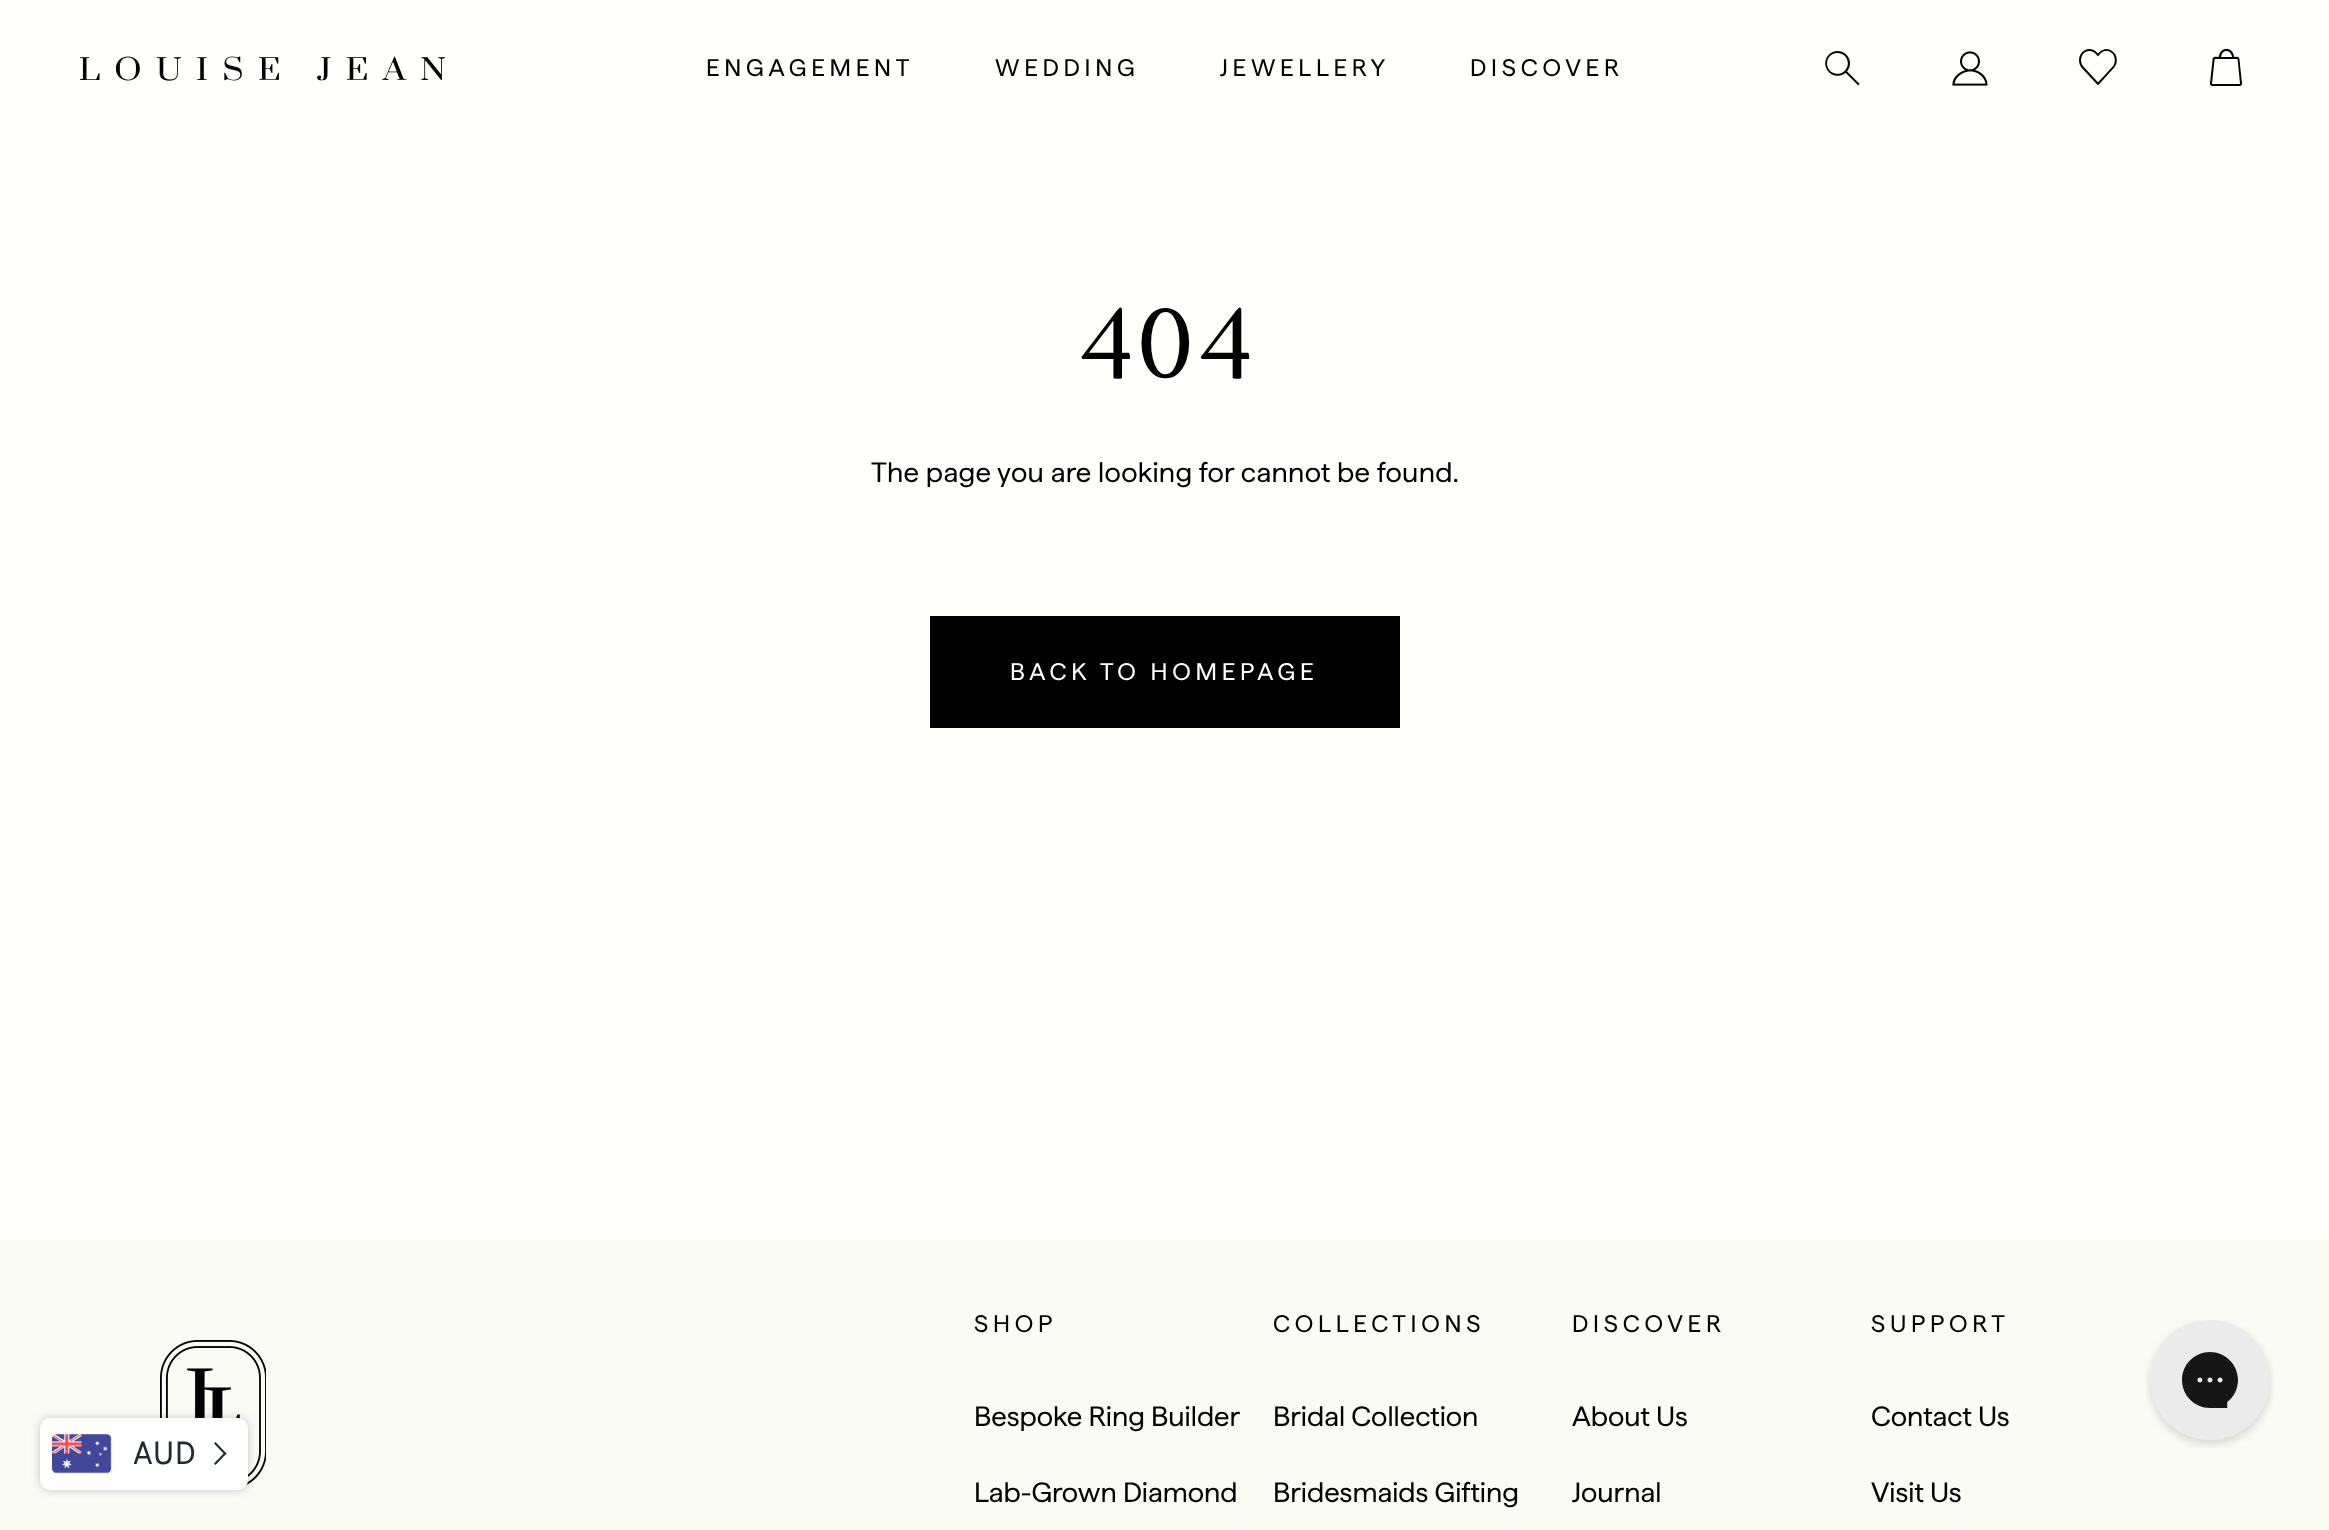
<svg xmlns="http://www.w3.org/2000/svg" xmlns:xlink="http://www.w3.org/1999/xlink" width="2329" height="1530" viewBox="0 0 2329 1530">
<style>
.cls-1{font:24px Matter;letter-spacing:4.75px;fill:#010101}
.cls-2{font:112px Amiri;fill:#010101}
.cls-3{font:28px Matter;letter-spacing:0.3px;fill:#010101}
.cls-4{font:24px Matter;letter-spacing:4.75px;fill:#fffffb}
.cls-5{font:28px Matter;fill:#010101}
.cls-6{font:32px Overpass;fill:#212b36}
</style>
<rect width="100%" height="100%" fill="#fffffb"/>
<image xlink:href="image0.png" x="80" y="56" width="365" height="25"/>
<image xlink:href="image1.png" x="1825" y="51" width="35" height="35"/>
<image xlink:href="image2.png" x="1952" y="51" width="36" height="35"/>
<image xlink:href="image3.png" x="2079" y="49" width="38" height="37"/>
<image xlink:href="image4.png" x="2210" y="48" width="33" height="38"/>
<rect fill="#010101" x="930" y="616" width="470" height="112"/>
<rect fill="#fbfbf6" x="0" y="1240" width="2329" height="290"/>
<image xlink:href="image5.png" x="160" y="1340" width="106" height="146"/>
<image xlink:href="image6.png" x="2146" y="1320" width="128" height="128"/>
<rect fill="#212b36" fill-opacity="0.25" filter="blur(5px)" x="40" y="1418" width="208" height="72" rx="10"/>
<rect fill="#ffffff" x="40" y="1418" width="208" height="72" rx="10"/>
<image xlink:href="image7.png" x="52" y="1434" width="60" height="40"/>
<path fill="#212b36" d="M214 1443.5L215.5 1442L226.5 1453.5L225 1455Z"/>
<path fill="#212b36" d="M214 1463.5L225 1452L226.5 1453.5L215.5 1465Z"/>
<text class="cls-1" x="706" y="76">ENGAGEMENT</text>
<text class="cls-1" x="995" y="76">WEDDING</text>
<text class="cls-1" x="1220" y="76">JEWELLERY</text>
<text class="cls-1" x="1470" y="76">DISCOVER</text>
<text class="cls-2" x="1076" y="378">404</text>
<text class="cls-3" x="871" y="482">The page you are looking for cannot be found.</text>
<text class="cls-4" x="1010" y="680">BACK TO HOMEPAGE</text>
<text class="cls-1" x="974" y="1332">SHOP</text>
<text class="cls-5" x="974" y="1426">Bespoke Ring Builder</text>
<text class="cls-5" x="974" y="1502">Lab-Grown Diamond</text>
<text class="cls-1" x="1273" y="1332">COLLECTIONS</text>
<text class="cls-5" x="1273" y="1426">Bridal Collection</text>
<text class="cls-5" x="1273" y="1502">Bridesmaids Gifting</text>
<text class="cls-1" x="1572" y="1332">DISCOVER</text>
<text class="cls-5" x="1572" y="1426">About Us</text>
<text class="cls-5" x="1572" y="1502">Journal</text>
<text class="cls-1" x="1871" y="1332">SUPPORT</text>
<text class="cls-5" x="1871" y="1426">Contact Us</text>
<text class="cls-5" x="1871" y="1502">Visit Us</text>
<text class="cls-6" x="132" y="1464">AUD</text>
</svg>
